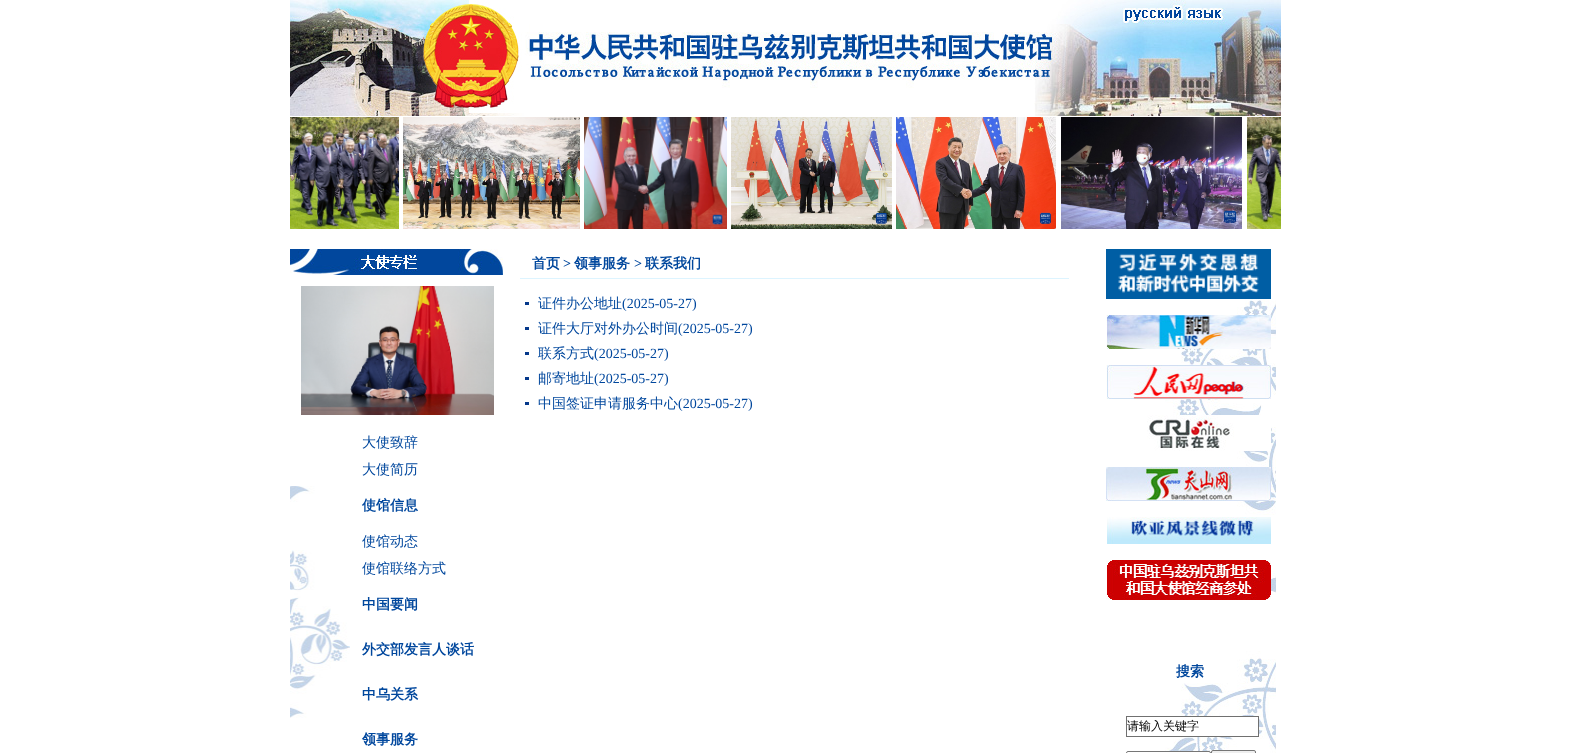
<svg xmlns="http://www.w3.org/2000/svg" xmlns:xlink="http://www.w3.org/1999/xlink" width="1570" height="753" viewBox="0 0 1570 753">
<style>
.cls-1{font:bold 14px WenQuanYi Zen Hei;fill:#00479d}
.cls-2{font:bold 14px Liberation Serif;fill:#00479d}
.cls-3{font:500 14px WenQuanYi Zen Hei;fill:#00479d}
.cls-4{font:14px Liberation Serif;fill:#00479d}
.cls-5{font:500 12px WenQuanYi Zen Hei;fill:#000000}
</style>
<rect width="100%" height="100%" fill="#ffffff"/>
<image xlink:href="image0.png" x="290" y="0" width="991" height="116"/>
<image xlink:href="image1.png" x="290" y="117" width="991" height="112"/>
<rect fill="#ddf4ff" x="520" y="278" width="549" height="1"/>
<rect fill="#05388b" x="525" y="302" width="4" height="3"/>
<rect fill="#05388b" x="525" y="327" width="4" height="3"/>
<rect fill="#05388b" x="525" y="352" width="4" height="3"/>
<rect fill="#05388b" x="525" y="377" width="4" height="3"/>
<rect fill="#05388b" x="525" y="402" width="4" height="3"/>
<image xlink:href="image2.png" x="290" y="486" width="60" height="232"/>
<image xlink:href="image3.png" x="290" y="249" width="213" height="26"/>
<image xlink:href="image4.png" x="301" y="286" width="193" height="129"/>
<image xlink:href="image5.png" x="1165" y="299" width="111" height="454"/>
<image xlink:href="image6.png" x="1106" y="249" width="165" height="50"/>
<image xlink:href="image7.png" x="1106" y="315" width="165" height="34"/>
<image xlink:href="image8.png" x="1106" y="365" width="165" height="34"/>
<image xlink:href="image9.png" x="1147" y="415" width="124" height="36"/>
<image xlink:href="image10.png" x="1106" y="467" width="165" height="34"/>
<image xlink:href="image11.png" x="1107" y="517" width="164" height="27"/>
<image xlink:href="image12.png" x="1106" y="560" width="165" height="40"/>
<rect fill="#ffffff" x="1181" y="717" width="77" height="19"/>
<rect fill="none" stroke="#707070" x="1126.5" y="716.5" width="132" height="20"/>
<rect fill="#ffffff" stroke="#767676" x="1126.5" y="751.5" width="84" height="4" rx="1.5"/>
<rect fill="#efefef" stroke="#767676" x="1211.5" y="750.5" width="44" height="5" rx="1.5"/>
<text class="cls-1" x="532" y="268">首页</text>
<text class="cls-2" x="563" y="268">&gt;</text>
<text class="cls-1" x="574" y="268">领事服务</text>
<text class="cls-2" x="634" y="268">&gt;</text>
<text class="cls-1" x="645" y="268">联系我们</text>
<text class="cls-3" x="538" y="308">证件办公地址</text>
<text class="cls-4" x="622" y="308">(2025-05-27)</text>
<text class="cls-3" x="538" y="333">证件大厅对外办公时间</text>
<text class="cls-4" x="678" y="333">(2025-05-27)</text>
<text class="cls-3" x="538" y="358">联系方式</text>
<text class="cls-4" x="594" y="358">(2025-05-27)</text>
<text class="cls-3" x="538" y="383">邮寄地址</text>
<text class="cls-4" x="594" y="383">(2025-05-27)</text>
<text class="cls-3" x="538" y="408">中国签证申请服务中心</text>
<text class="cls-4" x="678" y="408">(2025-05-27)</text>
<text class="cls-3"><tspan x="362" y="447">大使致辞</tspan><tspan x="362" y="474">大使简历</tspan></text>
<text class="cls-1" x="362" y="510">使馆信息</text>
<text class="cls-3"><tspan x="362" y="546">使馆动态</tspan><tspan x="362" y="573">使馆联络方式</tspan></text>
<text class="cls-1" x="362" y="609">中国要闻</text>
<text class="cls-1" x="362" y="654">外交部发言人谈话</text>
<text class="cls-1" x="362" y="699">中乌关系</text>
<text class="cls-1" x="362" y="744">领事服务</text>
<text class="cls-1" x="1176" y="676">搜索</text>
<text class="cls-5" x="1127" y="730">请输入关键字</text>
</svg>
